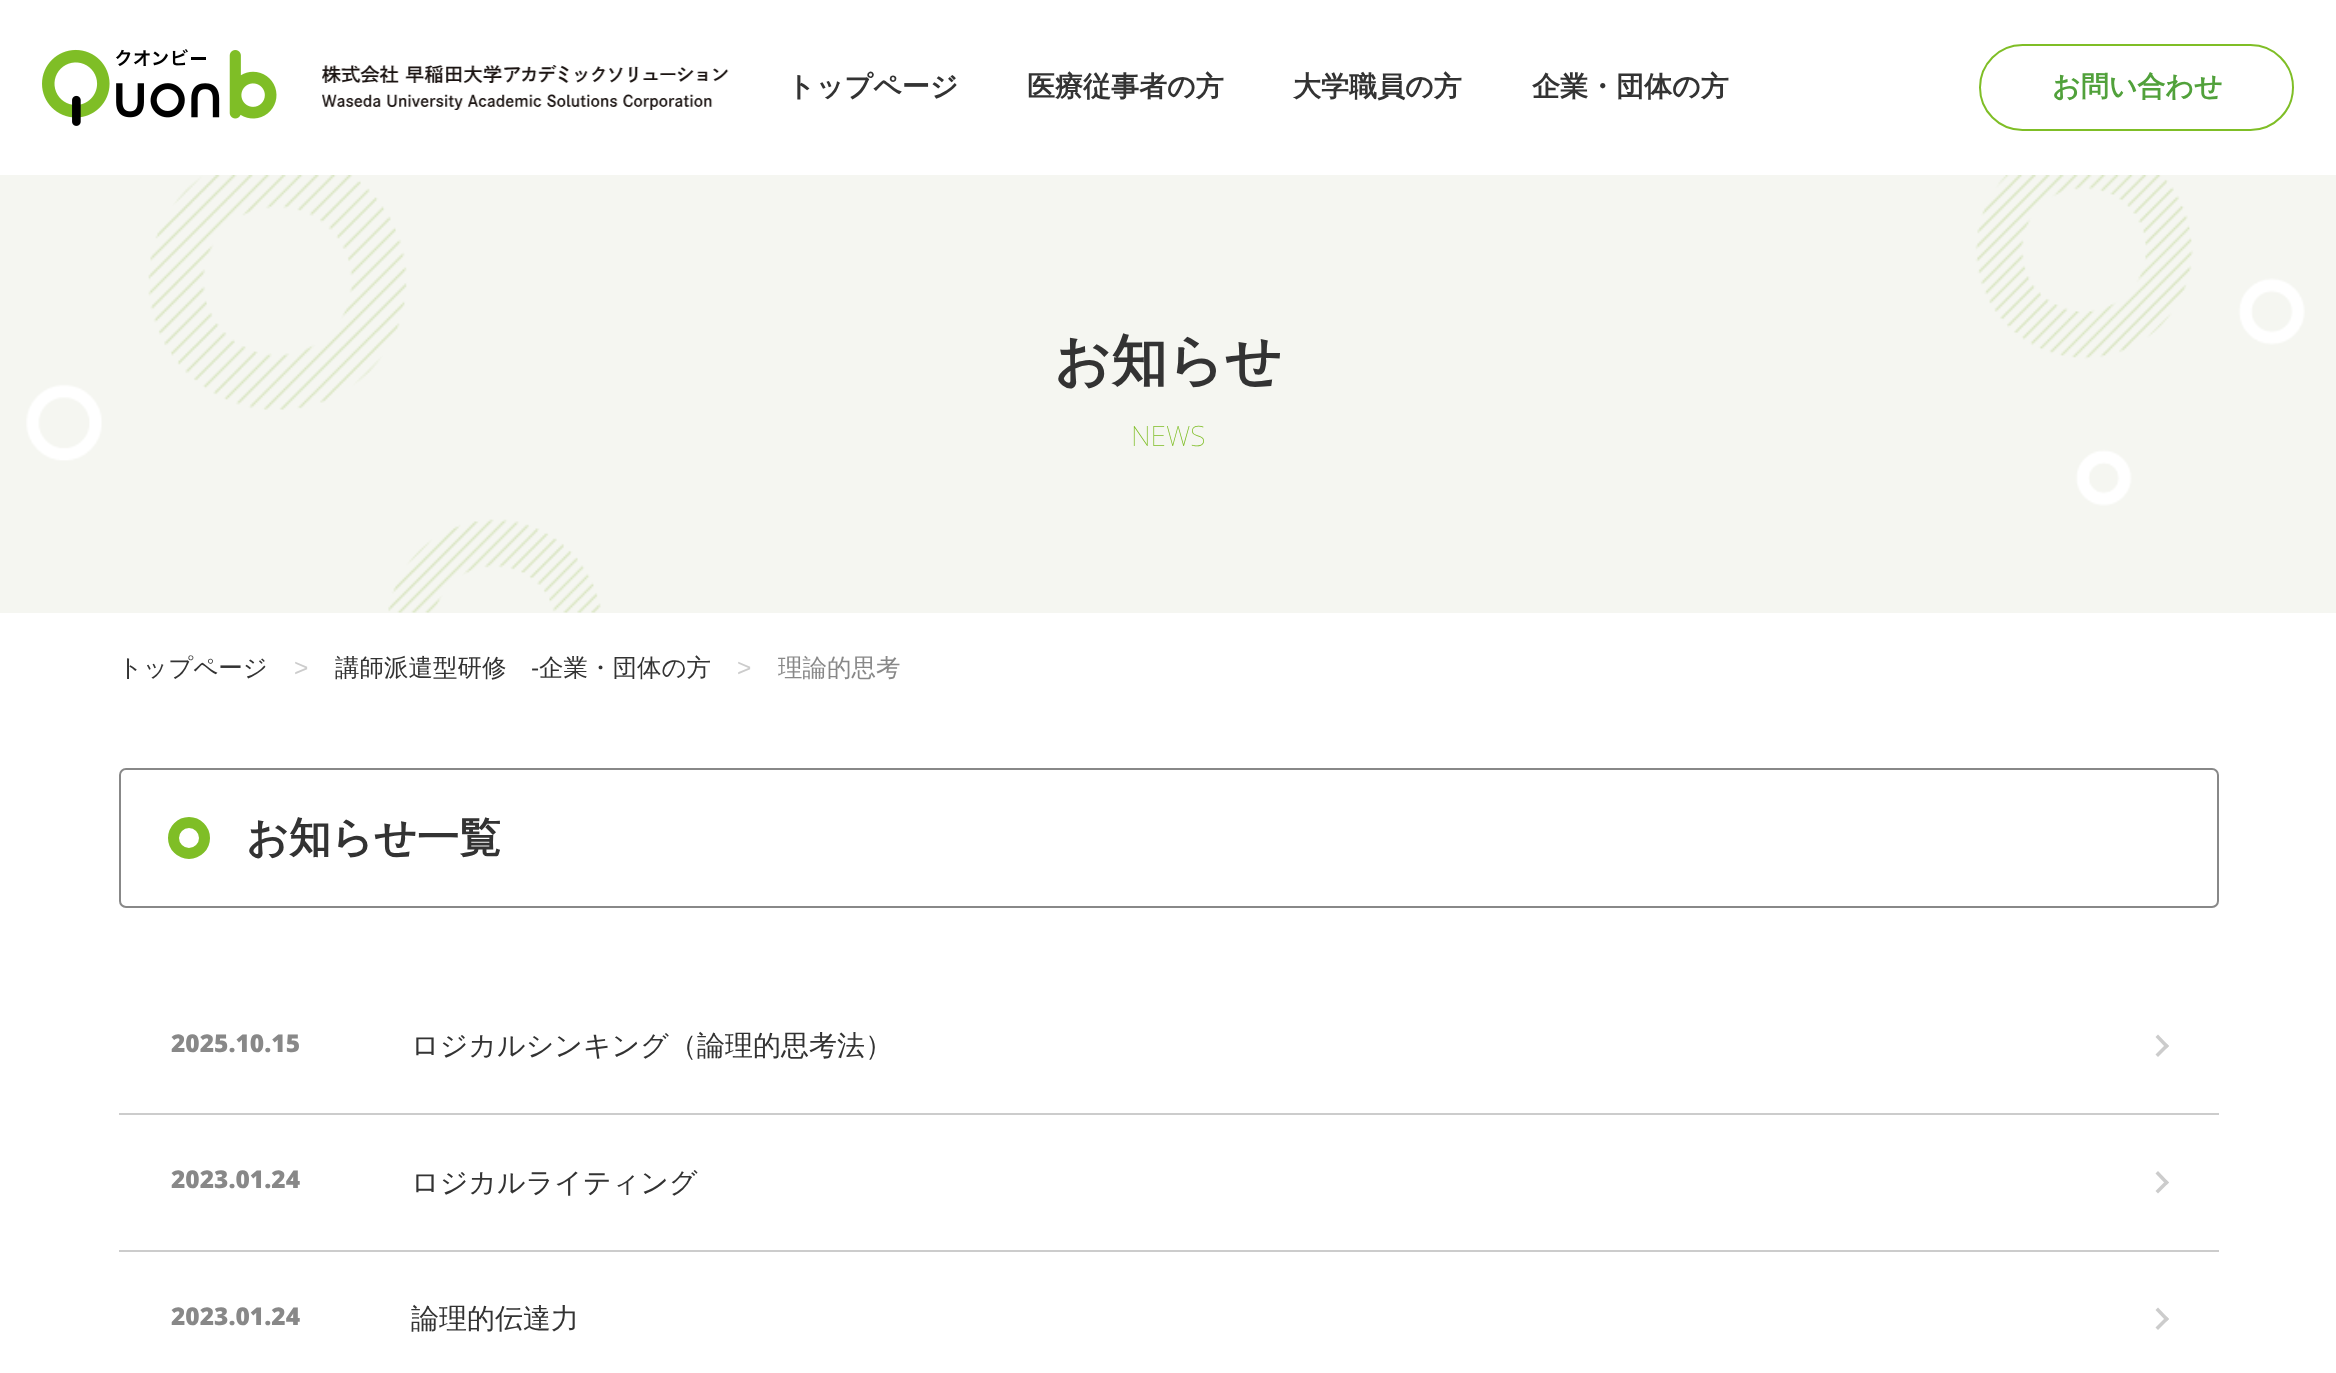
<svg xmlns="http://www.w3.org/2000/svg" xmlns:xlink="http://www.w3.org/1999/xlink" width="2336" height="1373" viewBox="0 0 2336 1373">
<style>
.cls-1{font:bold 28px WenQuanYi Zen Hei;fill:#333333}
.cls-2{font:bold 28px WenQuanYi Zen Hei;fill:#51a13b}
.cls-3{font:bold 56px WenQuanYi Zen Hei;fill:#333333}
.cls-4{font:100 28px Noto Sans;fill:#7fbe26}
.cls-5{font:500 24.5px WenQuanYi Zen Hei;fill:#333333}
.cls-6{font:24.5px Liberation Sans;fill:#cccccc}
.cls-7{font:24.5px Liberation Sans;fill:#333333}
.cls-8{font:500 24.5px WenQuanYi Zen Hei;fill:#888888}
.cls-9{font:bold 42px WenQuanYi Zen Hei;fill:#333333}
.cls-10{font:900 24.5px Noto Sans;fill:#888888}
.cls-11{font:500 28px WenQuanYi Zen Hei;fill:#333333}
</style>
<rect width="100%" height="100%" fill="#ffffff"/>
<image xlink:href="image0.png" x="42" y="49" width="235" height="77"/>
<image xlink:href="image1.png" x="322" y="65" width="407" height="45"/>
<rect fill="none" stroke="#7fbe26" stroke-width="2" x="1980" y="45" width="313" height="85" rx="42.5"/>
<rect fill="#f5f6f1" x="0" y="175" width="2336" height="438"/>
<image xlink:href="image2.png" x="26" y="175" width="2279" height="438"/>
<rect fill="none" stroke="#888888" stroke-width="2" x="120" y="769" width="2098" height="138" rx="6"/>
<circle fill="none" stroke="#7fbe26" stroke-width="11" cx="189" cy="838" r="15.5"/>
<rect fill="#cccccc" x="119" y="1113" width="2100" height="2"/>
<path fill="#cccccc" d="M2158 1034.5L2169 1046L2166.5 1048.5L2155.5 1037Z"/>
<path fill="#cccccc" d="M2166.5 1043.5L2169 1046L2158 1057L2155.5 1054.5Z"/>
<rect fill="#cccccc" x="119" y="1250" width="2100" height="2"/>
<path fill="#cccccc" d="M2158 1171L2169 1182.5L2166.5 1185L2155.5 1173.5Z"/>
<path fill="#cccccc" d="M2166.5 1180L2169 1182.5L2158 1193.5L2155.5 1191Z"/>
<path fill="#cccccc" d="M2158 1307.5L2169 1319L2166.5 1321.5L2155.5 1310Z"/>
<path fill="#cccccc" d="M2166.5 1316.5L2169 1319L2158 1330L2155.5 1327.5Z"/>
<text class="cls-1" x="787" y="96">トップページ</text>
<text class="cls-1" x="1027" y="96">医療従事者の方</text>
<text class="cls-1" x="1293" y="96">大学職員の方</text>
<text class="cls-1" x="1532" y="96">企業・団体の方</text>
<text class="cls-2" x="2052" y="96">お問い合わせ</text>
<text class="cls-3" x="1054" y="380">お知らせ</text>
<text class="cls-4" x="1131" y="446">NEWS</text>
<text class="cls-5" x="118" y="676">トップページ</text>
<text class="cls-6" x="294" y="676">&gt;</text>
<text class="cls-5" x="335" y="676">講師派遣型研修</text>
<text class="cls-7" x="531" y="676">-</text>
<text class="cls-5" x="539" y="676">企業・団体の方</text>
<text class="cls-6" x="737" y="676">&gt;</text>
<text class="cls-8" x="778" y="676">理論的思考</text>
<text class="cls-9" x="246" y="852">お知らせ一覧</text>
<text class="cls-10" x="171" y="1052">2025.10.15</text>
<text class="cls-11" x="411" y="1055">ロジカルシンキング（論理的思考法）</text>
<text class="cls-10" x="171" y="1188">2023.01.24</text>
<text class="cls-11" x="411" y="1192">ロジカルライティング</text>
<text class="cls-10" x="171" y="1325">2023.01.24</text>
<text class="cls-11" x="411" y="1328">論理的伝達力</text>
</svg>
